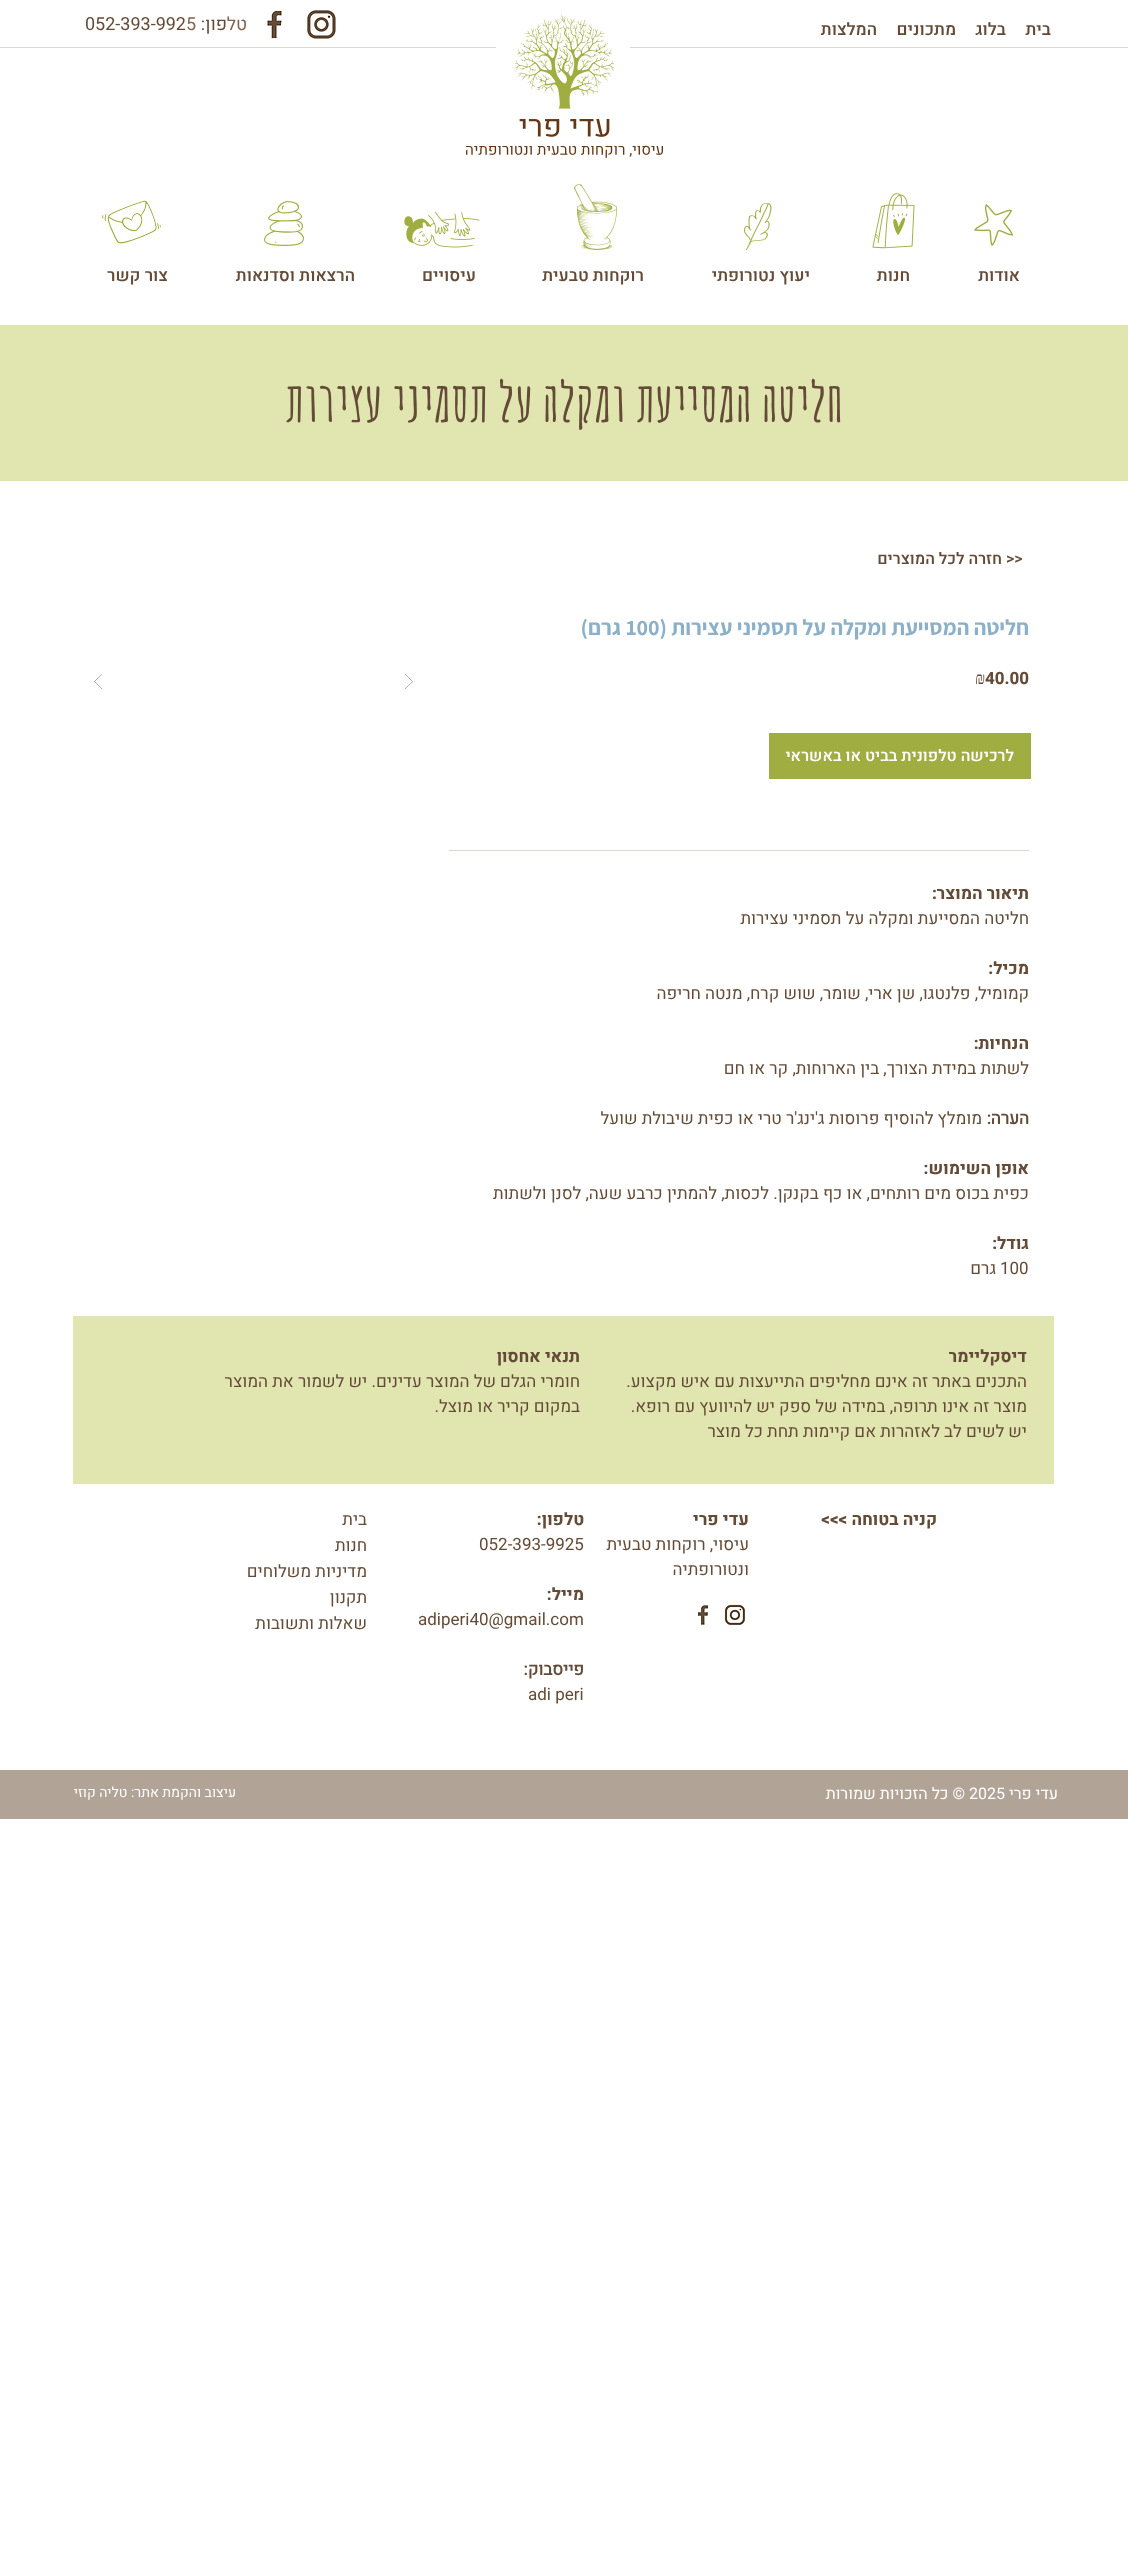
<svg xmlns="http://www.w3.org/2000/svg" xmlns:xlink="http://www.w3.org/1999/xlink" width="1128" height="2565" viewBox="0 0 1128 2565">
<style>
.cls-1{font:500 17px Heebo;direction:rtl;fill:#644b37}
.cls-2{font:18px Heebo;direction:rtl;fill:#806550}
.cls-3{font:18px Heebo;direction:rtl;fill:#644b37}
.cls-4{font:18px Heebo;fill:#806550}
.cls-5{font:18px Heebo;fill:#644b37}
.cls-6{font:bold 54px Amatic SC;direction:rtl;fill:#644b37}
.cls-7{font:500 16px Heebo;fill:#644b37}
.cls-8{font:500 16px Heebo;direction:rtl;fill:#644b37}
.cls-9{font:bold 22px Assistant;direction:rtl;fill:#8bb0c7}
.cls-10{font:bold 22px Assistant;fill:#8bb0c7}
.cls-11{font:bold 17px Heebo;fill:#644b37}
.cls-12{font:17px Liberation Serif;fill:#644b37}
.cls-13{font:500 16px Heebo;direction:rtl;fill:#ffffff}
.cls-14{font:bold 17px Heebo;direction:rtl;fill:#644b37}
.cls-15{font:17px Heebo;direction:rtl;fill:#644b37}
.cls-16{font:bold 17px 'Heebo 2';direction:rtl;fill:#644b37}
.cls-17{font:17px Heebo;fill:#644b37}
.cls-18{font:16px Heebo;direction:rtl;fill:#ffffff}
.cls-19{font:16px Heebo;fill:#ffffff}
.cls-20{font:14px Heebo;direction:rtl;fill:#ffffff}
</style>
<rect width="100%" height="100%" fill="#ffffff"/>
<rect fill="#ddd7d3" x="0" y="47" width="1128" height="1"/>
<rect fill="#ffffff" x="496" y="47" width="134" height="1"/>
<image xlink:href="image0.png" x="466" y="14" width="197" height="144"/>
<image xlink:href="image1.png" x="307" y="10" width="29" height="29"/>
<image xlink:href="image2.png" x="267" y="10" width="15" height="29"/>
<image xlink:href="image3.png" x="973" y="204" width="41" height="42"/>
<image xlink:href="image4.png" x="872" y="193" width="43" height="56"/>
<image xlink:href="image5.png" x="744" y="203" width="28" height="47"/>
<image xlink:href="image6.png" x="574" y="184" width="43" height="66"/>
<image xlink:href="image7.png" x="404" y="211" width="76" height="37"/>
<image xlink:href="image8.png" x="264" y="201" width="40" height="45"/>
<image xlink:href="image9.png" x="102" y="200" width="59" height="44"/>
<rect fill="#e1e6b1" x="0" y="325" width="1128" height="156"/>
<image xlink:href="image10.png" x="405" y="674" width="8" height="15"/>
<image xlink:href="image11.png" x="94" y="674" width="8" height="15"/>
<rect fill="#a0ad41" x="769" y="733" width="262" height="46"/>
<rect fill="#ddd7d3" x="449" y="850" width="580" height="1"/>
<rect fill="#e1e6b1" x="73" y="1316" width="981" height="168"/>
<image xlink:href="image12.png" x="724" y="1604" width="21" height="21"/>
<image xlink:href="image13.png" x="698" y="1605" width="10" height="20"/>
<rect fill="#b2a397" x="0" y="1770" width="1128" height="49"/>
<text class="cls-1" x="1051" y="35">בית</text>
<text class="cls-1" x="1006" y="35">בלוג</text>
<text class="cls-1" x="956" y="35">מתכונים</text>
<text class="cls-1" x="877" y="35">המלצות</text>
<text class="cls-2" x="247" y="30">טל</text>
<text class="cls-3" x="227" y="30">פון:</text>
<text class="cls-4" x="186" y="30">5</text>
<text class="cls-5" x="85" y="30">052-393-992</text>
<text class="cls-1" x="1020" y="281">אודות</text>
<text class="cls-1" x="910" y="281">חנות</text>
<text class="cls-1" x="810" y="281">יעוץ נטורופתי</text>
<text class="cls-1" x="644" y="281">רוקחות טבעית</text>
<text class="cls-1" x="476" y="281">עיסויים</text>
<text class="cls-1" x="355" y="281">הרצאות וסדנאות</text>
<text class="cls-1" x="168" y="281">צור קשר</text>
<text class="cls-6" x="843" y="422">חליטה המסייעת ומקלה על תסמיני עצירות</text>
<text class="cls-7" x="1006" y="564">&gt;&gt;</text>
<text class="cls-8" x="1002" y="564">חזרה לכל המוצרים</text>
<text class="cls-9" x="1029" y="635">חליטה המסייעת ומקלה על תסמיני עצירות (</text>
<text class="cls-10" x="626" y="635">100</text>
<text class="cls-9" x="621" y="635">גרם)</text>
<text class="cls-11" x="985" y="684">40.00</text>
<text class="cls-12" x="975" y="684">₪</text>
<text class="cls-13" x="1014" y="761">לרכישה טלפונית בביט או באשראי</text>
<text class="cls-14" x="1029" y="899">תיאור המוצר:</text>
<text class="cls-15" x="1029" y="924">חליטה המסייעת ומקלה על תסמיני עצירות</text>
<text class="cls-14" x="1029" y="974">מכיל:</text>
<text class="cls-15" x="1029" y="999">קמומיל, פלנטגו, שן ארי, שומר, שוש קרח, מנטה חריפה</text>
<text class="cls-14" x="1029" y="1049">הנחיות:</text>
<text class="cls-15" x="1029" y="1074">לשתות במידת הצורך, בין הארוחות, קר או חם</text>
<text class="cls-16" x="1029" y="1124">הערה:</text>
<text class="cls-15" x="982" y="1124">מומלץ להוסיף פרוסות ג'ינג'ר טרי או כפית שיבולת שועל</text>
<text class="cls-14" x="1029" y="1174">אופן השימוש:</text>
<text class="cls-15" x="1029" y="1199">כפית בכוס מים רותחים, או כף בקנקן. לכסות, להמתין כרבע שעה, לסנן ולשתות</text>
<text class="cls-14" x="1029" y="1249">גודל:</text>
<text class="cls-17" x="1000" y="1274">100</text>
<text class="cls-15" x="996" y="1274">גרם</text>
<text class="cls-14" x="1027" y="1362">דיסקליימר</text>
<text class="cls-15"><tspan x="1027" y="1387">התכנים באתר זה אינם מחליפים התייעצות עם איש מקצוע.</tspan><tspan x="1027" y="1412">מוצר זה אינו תרופה, במידה של ספק יש להיוועץ עם רופא.</tspan><tspan x="1027" y="1437">יש לשים לב לאזהרות אם קיימות תחת כל מוצר</tspan></text>
<text class="cls-14" x="580" y="1362">תנאי אחסון</text>
<text class="cls-15"><tspan x="580" y="1387">חומרי הגלם של המוצר עדינים. יש לשמור את המוצר</tspan><tspan x="580" y="1412">במקום קריר או מוצל.</tspan></text>
<text class="cls-14" x="937" y="1525">קניה בטוחה &gt;&gt;&gt;</text>
<text class="cls-14" x="749" y="1525">עדי פרי</text>
<text class="cls-15"><tspan x="749" y="1550">עיסוי, רוקחות טבעית</tspan><tspan x="749" y="1575">ונטורופתיה</tspan></text>
<text class="cls-14" x="584" y="1525">טלפון:</text>
<text class="cls-17" x="479" y="1550">052-393-9925</text>
<text class="cls-14" x="584" y="1600">מייל:</text>
<text class="cls-17" x="418" y="1625">adiperi40@gmail.com</text>
<text class="cls-16" x="584" y="1675">פייסבוק:</text>
<text class="cls-17" x="528" y="1700">adi peri</text>
<text class="cls-15"><tspan x="367" y="1525">בית</tspan><tspan x="367" y="1551">חנות</tspan><tspan x="367" y="1577">מדיניות משלוחים</tspan><tspan x="367" y="1603">תקנון</tspan><tspan x="367" y="1629">שאלות ותשובות</tspan></text>
<text class="cls-18" x="1058" y="1799">עדי פרי</text>
<text class="cls-19" x="969" y="1799">2025</text>
<text class="cls-18" x="965" y="1799">© כל הזכויות שמורות</text>
<text class="cls-20" x="236" y="1797">עיצוב והקמת אתר: טליה קוזי</text>
</svg>
